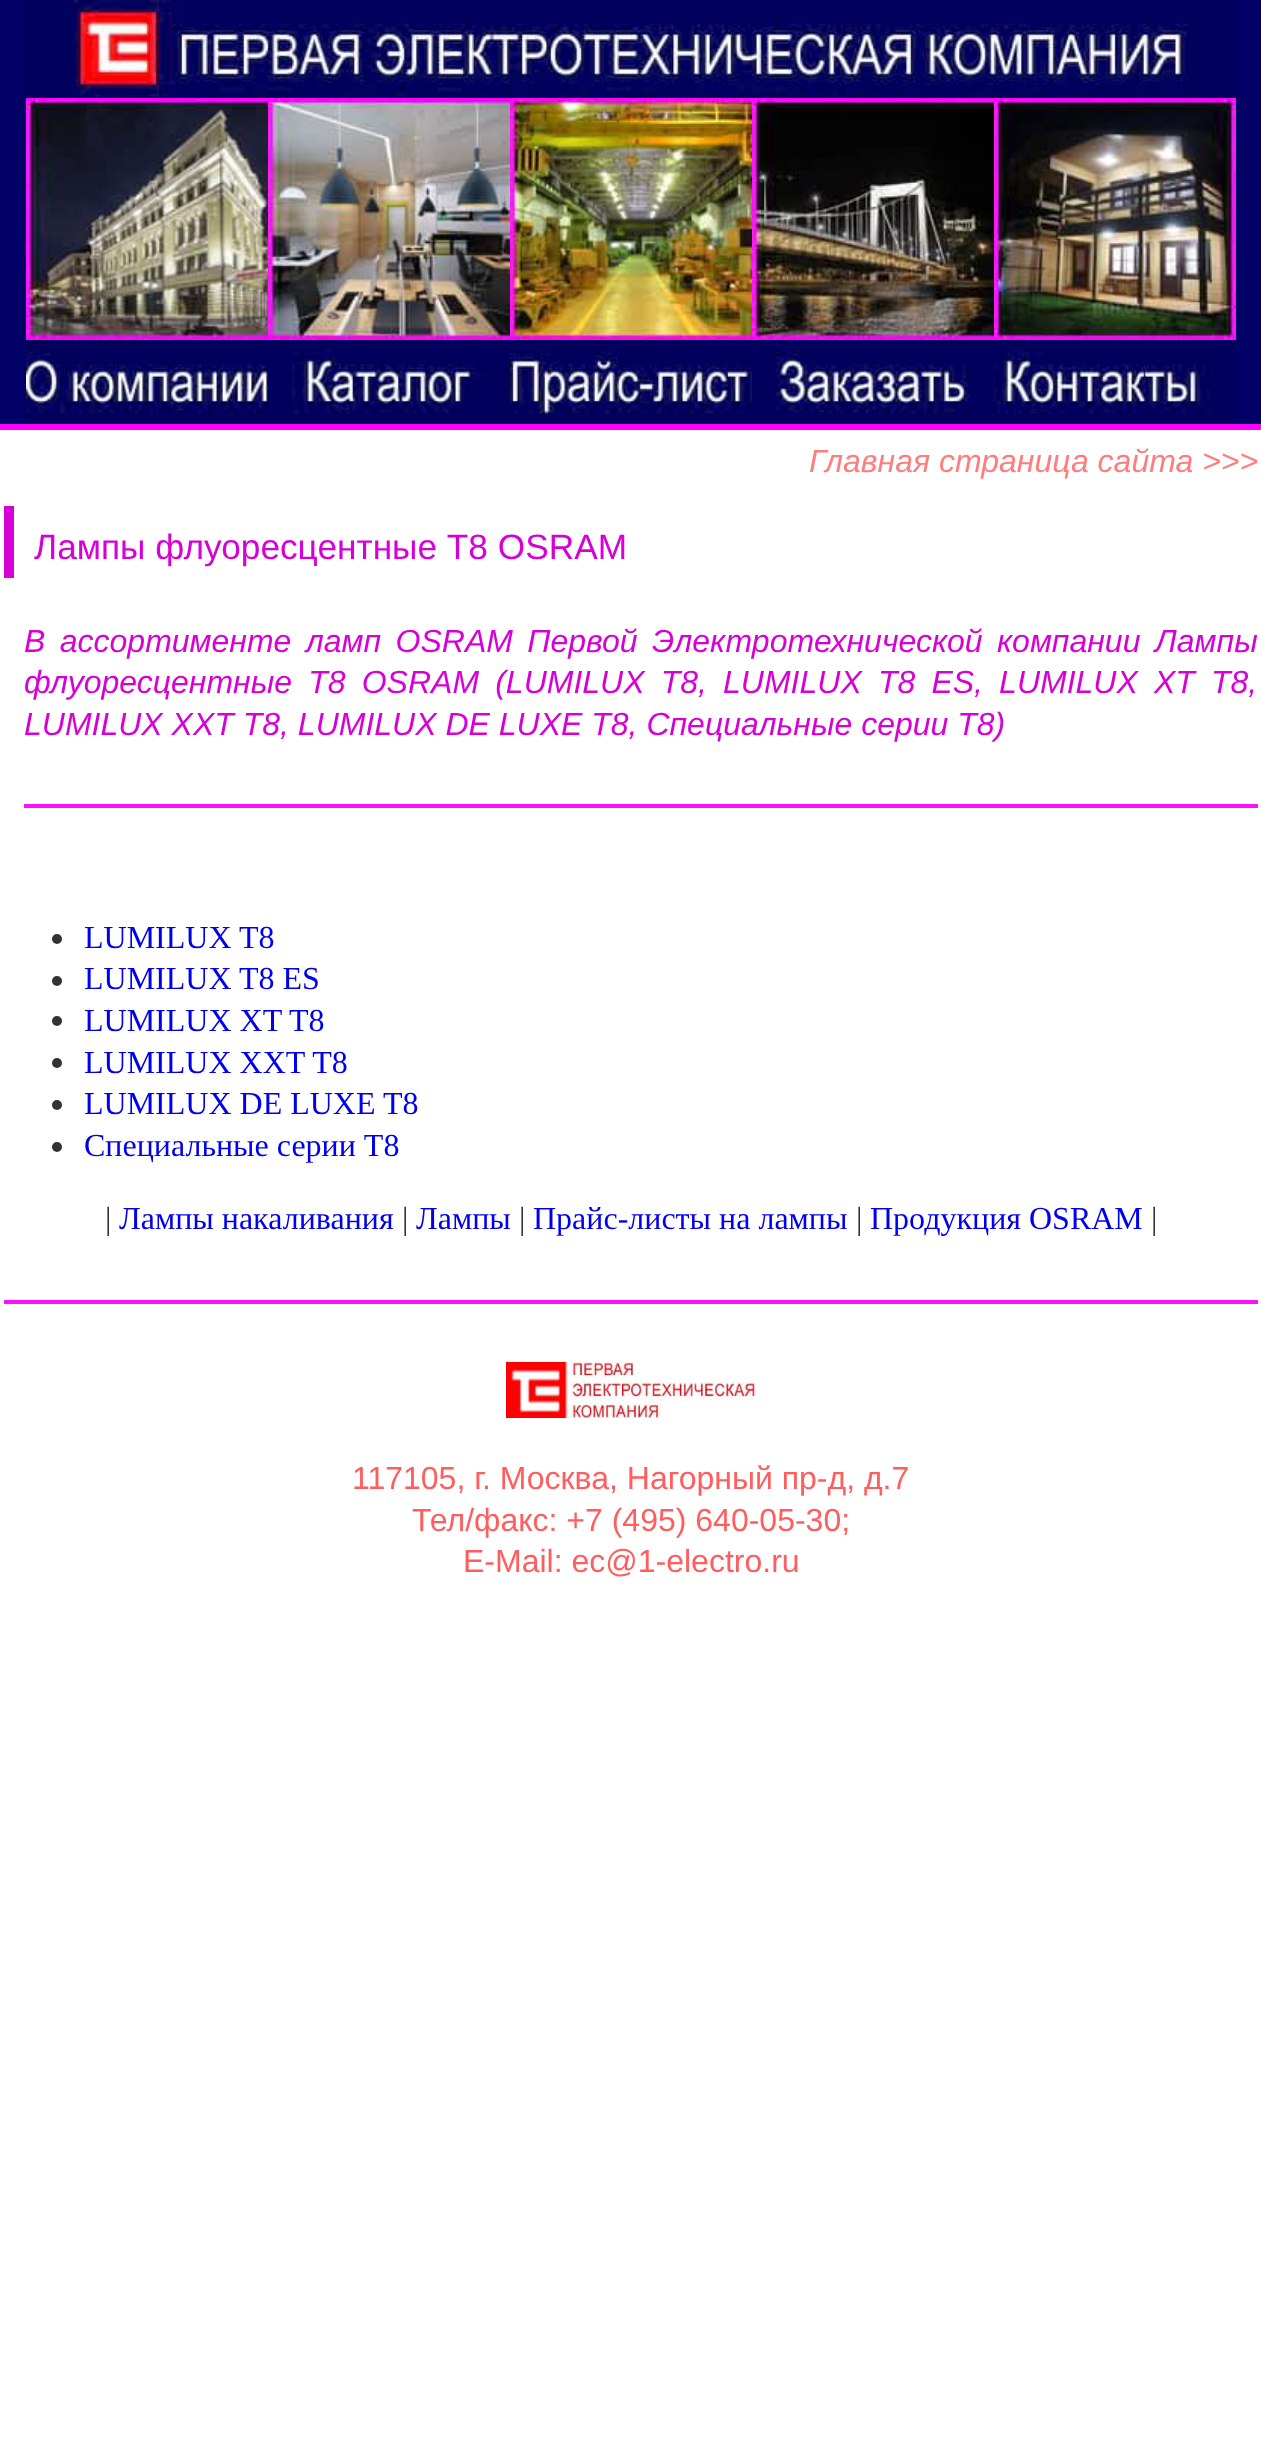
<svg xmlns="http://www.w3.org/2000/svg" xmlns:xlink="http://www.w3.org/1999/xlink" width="1261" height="2454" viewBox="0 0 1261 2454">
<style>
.cls-1{font:italic 32px Liberation Sans;fill:#ff7d7d}
.cls-2{font:35.25px Liberation Sans;fill:#d700d7}
.cls-3{font:italic 32px Liberation Sans;fill:#d700d7}
.cls-4{font:32px Liberation Serif;fill:#0000ee}
.cls-5{font:32px Liberation Serif;fill:#333333}
.cls-6{font:32px Liberation Sans;fill:#ff5e5e}
</style>
<rect width="100%" height="100%" fill="#ffffff"/>
<rect fill="#000066" x="0" y="0" width="1261" height="424"/>
<rect fill="#ff00ff" x="0" y="424" width="1261" height="6"/>
<image xlink:href="image0.png" x="26" y="0" width="1210" height="98"/>
<image xlink:href="image1.png" x="26" y="98" width="242" height="242"/>
<image xlink:href="image2.png" x="268" y="98" width="242" height="242"/>
<image xlink:href="image3.png" x="510" y="98" width="242" height="242"/>
<image xlink:href="image4.png" x="752" y="98" width="242" height="242"/>
<image xlink:href="image5.png" x="994" y="98" width="242" height="242"/>
<image xlink:href="image6.png" x="26" y="340" width="242" height="84"/>
<image xlink:href="image7.png" x="268" y="340" width="242" height="84"/>
<image xlink:href="image8.png" x="510" y="340" width="242" height="84"/>
<image xlink:href="image9.png" x="752" y="340" width="242" height="84"/>
<image xlink:href="image10.png" x="994" y="340" width="242" height="84"/>
<rect fill="#d700d7" x="4" y="506" width="10" height="72"/>
<rect fill="#ff0fff" x="24" y="804" width="1234" height="4"/>
<circle fill="#333333" cx="57" cy="939" r="5"/>
<circle fill="#333333" cx="57" cy="981" r="5"/>
<circle fill="#333333" cx="57" cy="1021" r="5"/>
<circle fill="#333333" cx="57" cy="1063" r="5"/>
<circle fill="#333333" cx="57" cy="1105" r="5"/>
<circle fill="#333333" cx="57" cy="1147" r="5"/>
<rect fill="#ff0fff" x="4" y="1300" width="1254" height="4"/>
<image xlink:href="image11.png" x="506" y="1362" width="250" height="56"/>
<text class="cls-1" x="809" y="472">Главная страница сайта &gt;&gt;&gt;</text>
<text class="cls-2" x="34" y="559">Лампы флуоресцентные T8 OSRAM</text>
<text class="cls-3"><tspan x="24" y="652" word-spacing="5.5">В ассортименте ламп OSRAM Первой Электротехнической компании Лампы</tspan><tspan x="24" y="693" word-spacing="7.25">флуоресцентные T8 OSRAM (LUMILUX T8, LUMILUX T8 ES, LUMILUX XT T8,</tspan><tspan x="24" y="735">LUMILUX XXT T8, LUMILUX DE LUXE T8, Специальные серии T8)</tspan></text>
<text class="cls-4"><tspan x="84" y="948">LUMILUX T8</tspan><tspan x="84" y="989">LUMILUX T8 ES</tspan><tspan x="84" y="1031">LUMILUX XT T8</tspan><tspan x="84" y="1073">LUMILUX XXT T8</tspan><tspan x="84" y="1114">LUMILUX DE LUXE T8</tspan><tspan x="84" y="1156">Специальные серии T8</tspan></text>
<text class="cls-5" x="105" y="1229">|</text>
<text class="cls-4" x="119" y="1229">Лампы накаливания</text>
<text class="cls-5" x="402" y="1229">|</text>
<text class="cls-4" x="416" y="1229">Лампы</text>
<text class="cls-5" x="519" y="1229">|</text>
<text class="cls-4" x="533" y="1229">Прайс-листы на лампы</text>
<text class="cls-5" x="856" y="1229">|</text>
<text class="cls-4" x="870" y="1229">Продукция OSRAM</text>
<text class="cls-5" x="1151" y="1229">|</text>
<text class="cls-6" x="352" y="1489">117105, г. Москва, Нагорный пр-д, д.7</text>
<text class="cls-6" x="412" y="1531">Тел/факс: +7 (495) 640-05-30;</text>
<text class="cls-6" x="463" y="1572">E-Mail: ec@1-electro.ru</text>
</svg>
